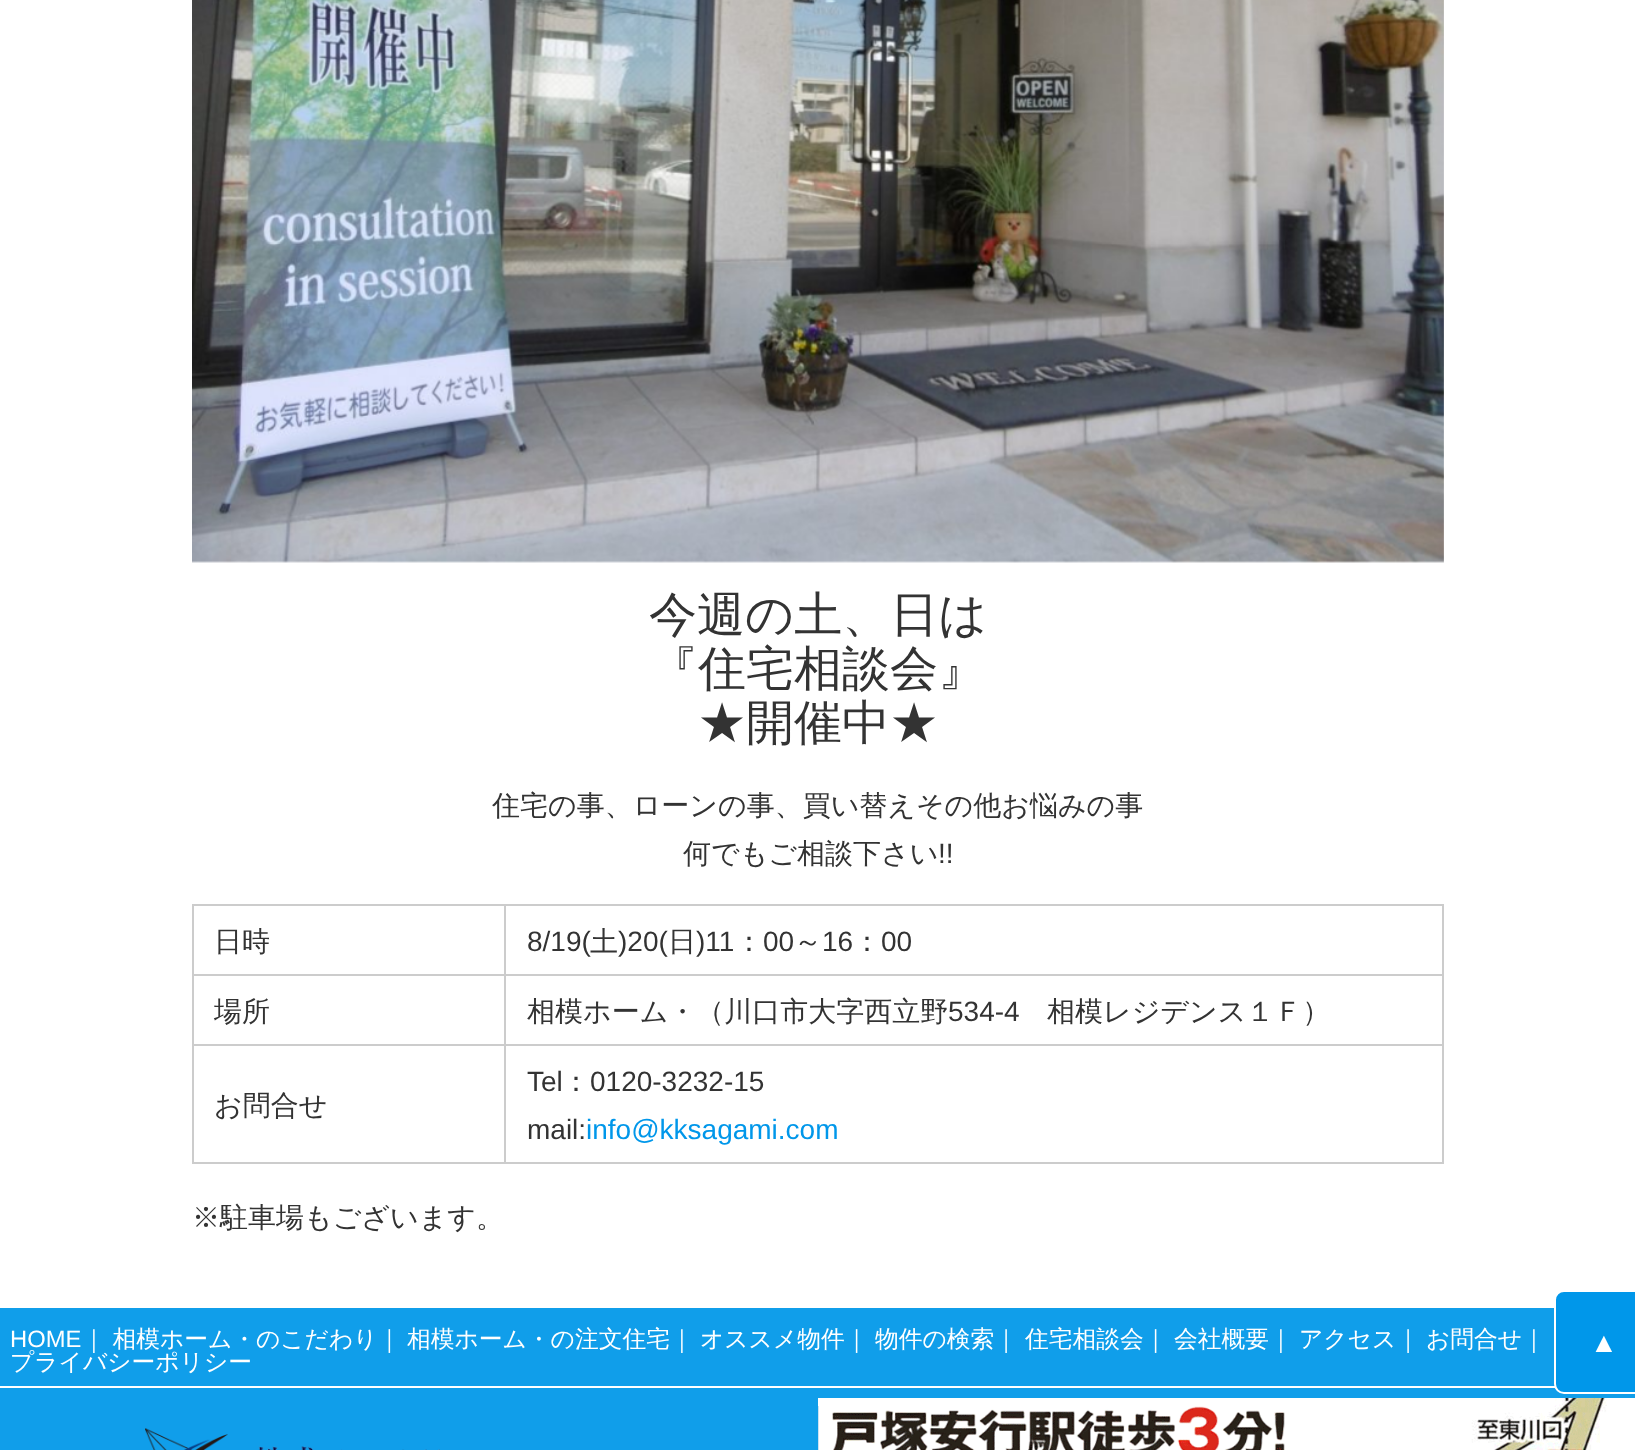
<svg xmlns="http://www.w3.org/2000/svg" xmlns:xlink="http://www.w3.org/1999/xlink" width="1635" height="1450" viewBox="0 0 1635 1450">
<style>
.cls-1{font:500 48px WenQuanYi Zen Hei;fill:#333333}
.cls-2{font:500 28px WenQuanYi Zen Hei;fill:#333333}
.cls-3{font:28px Liberation Sans;fill:#333333}
.cls-4{font:28px Liberation Sans;fill:#0097ea}
.cls-5{font:23.75px Liberation Sans;fill:#ffffff}
.cls-6{font:500 23.75px WenQuanYi Zen Hei;fill:#ffffff}
.cls-7{font:28px Liberation Sans;fill:#ffffff}
</style>
<rect width="100%" height="100%" fill="#ffffff"/>
<image xlink:href="image0.png" x="192" y="0" width="1252" height="563"/>
<rect fill="#cccccc" x="192" y="904" width="1252" height="2"/>
<rect fill="#cccccc" x="1442" y="904" width="2" height="260"/>
<rect fill="#cccccc" x="192" y="1162" width="1252" height="2"/>
<rect fill="#cccccc" x="192" y="904" width="2" height="260"/>
<rect fill="#cccccc" x="192" y="974" width="1252" height="2"/>
<rect fill="#cccccc" x="192" y="1044" width="1252" height="2"/>
<rect fill="#cccccc" x="504" y="904" width="2" height="260"/>
<rect fill="#109eea" x="0" y="1308" width="1635" height="142"/>
<rect fill="#ffffff" x="0" y="1386" width="1555" height="2"/>
<image xlink:href="image1.png" x="145" y="1428" width="295" height="22"/>
<image xlink:href="image2.png" x="818" y="1398" width="817" height="52"/>
<rect fill="#0097ea" stroke="#ffffff" stroke-width="2" x="1555" y="1291" width="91" height="102" rx="9"/>
<text class="cls-1" x="649" y="631">今週の土、日は</text>
<text class="cls-1" x="650" y="685">『住宅相談会』</text>
<text class="cls-1" x="698" y="739">★開催中★</text>
<text class="cls-2" x="492" y="815">住宅の事、ローンの事、買い替えその他お悩みの事</text>
<text class="cls-2" x="683" y="863">何でもご相談下さい</text>
<text class="cls-3" x="938" y="863">!!</text>
<text class="cls-2" x="214" y="951">日時</text>
<text class="cls-3" x="527" y="951">8/19(</text>
<text class="cls-2" x="590" y="951">土</text>
<text class="cls-3" x="618" y="951">)20(</text>
<text class="cls-2" x="668" y="951">日</text>
<text class="cls-3" x="696" y="951">)11</text>
<text class="cls-2" x="735" y="951">：</text>
<text class="cls-3" x="763" y="951">00</text>
<text class="cls-2" x="794" y="951">～</text>
<text class="cls-3" x="822" y="951">16</text>
<text class="cls-2" x="853" y="951">：</text>
<text class="cls-3" x="881" y="951">00</text>
<text class="cls-2" x="214" y="1021">場所</text>
<text class="cls-2" x="527" y="1021">相模ホーム・（川口市大字西立野</text>
<text class="cls-3" x="948" y="1021">534-4</text>
<text class="cls-2" x="1047" y="1021">相模レジデンス１Ｆ）</text>
<text class="cls-2" x="214" y="1115">お問合せ</text>
<text class="cls-3" x="527" y="1091">Tel</text>
<text class="cls-2" x="562" y="1091">：</text>
<text class="cls-3" x="590" y="1091">0120-3232-15</text>
<text class="cls-3" x="527" y="1139">mail:</text>
<text class="cls-4" x="586" y="1139">info@kksagami.com</text>
<text class="cls-2" x="192" y="1227">※駐車場もございます。</text>
<text class="cls-5" x="10" y="1347">HOME</text>
<text class="cls-6" x="82" y="1347">｜ 相模ホーム・のこだわり｜</text>
<text class="cls-6" x="407" y="1347">相模ホーム・の注文住宅｜</text>
<text class="cls-6" x="700" y="1347">オススメ物件｜</text>
<text class="cls-6" x="875" y="1347">物件の検索｜</text>
<text class="cls-6" x="1025" y="1347">住宅相談会｜</text>
<text class="cls-6" x="1174" y="1347">会社概要｜</text>
<text class="cls-6" x="1299" y="1347">アクセス｜</text>
<text class="cls-6" x="1426" y="1347">お問合せ｜</text>
<text class="cls-6" x="10" y="1370">プライバシーポリシー</text>
<text class="cls-7" x="1590" y="1352">▲</text>
</svg>
